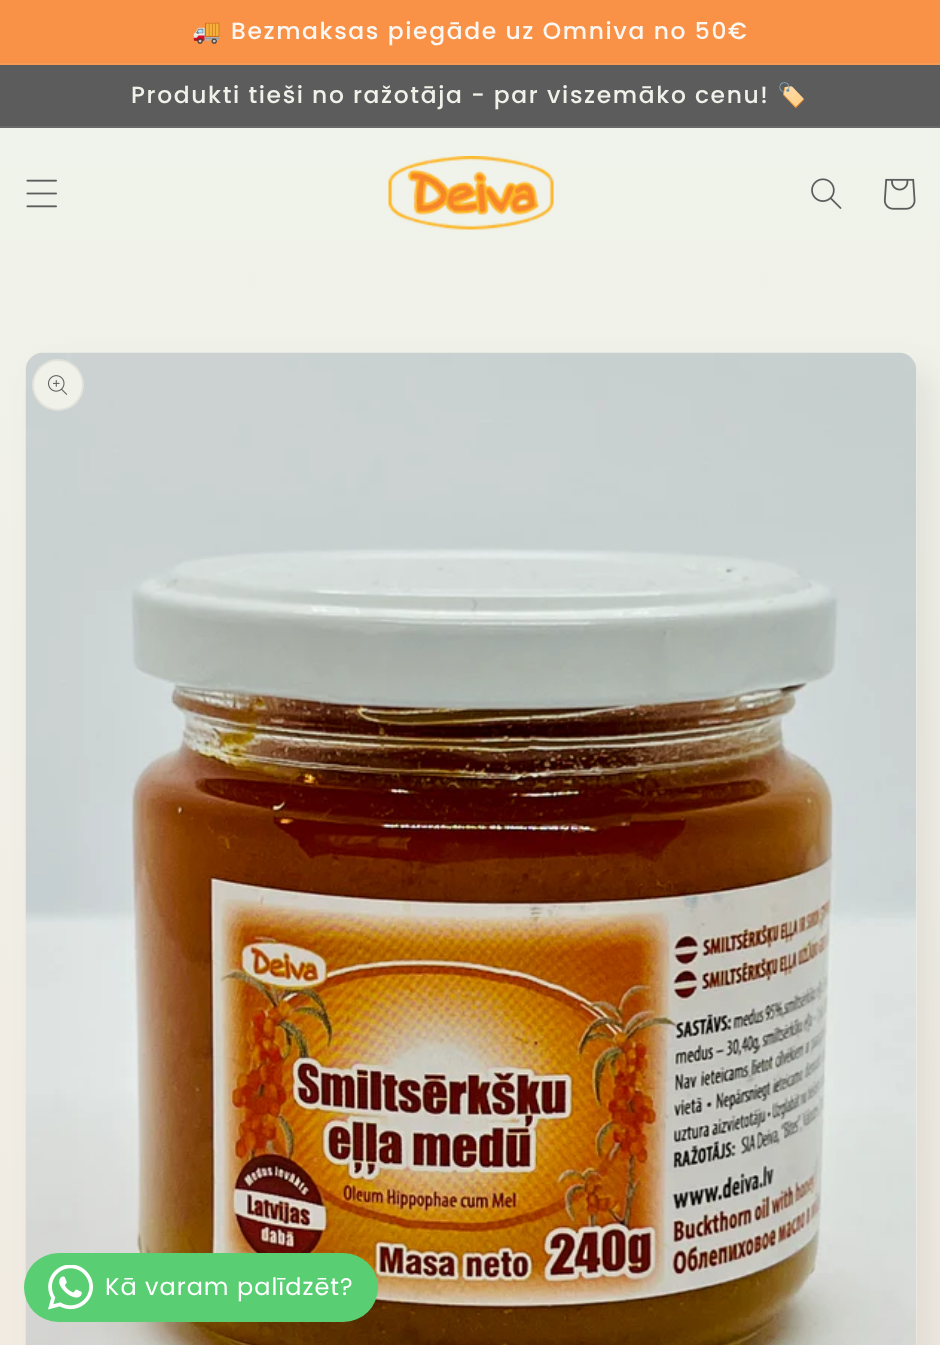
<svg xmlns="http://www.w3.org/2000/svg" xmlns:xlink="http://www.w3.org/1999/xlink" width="940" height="1345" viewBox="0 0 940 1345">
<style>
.cls-1{font:23.4px Noto Color Emoji;letter-spacing:1.65px;fill:#faf7f2}
.cls-2{font:500 23.4px Poppins;letter-spacing:1.65px;fill:#faf7f2}
.cls-3{font:500 23.4px Poppins;letter-spacing:1.65px;fill:#f0f2ea}
.cls-4{font:23.4px Noto Color Emoji;letter-spacing:1.65px;fill:#f0f2ea}
.cls-5{font:24px Poppins;letter-spacing:1px;fill:#ffffff}
</style>
<defs>
<linearGradient id="g1" gradientUnits="userSpaceOnUse" x1="470" y1="0" x2="470" y2="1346"><stop offset="0" stop-color="#f0f4ec"/><stop offset="1" stop-color="#f1ebe2"/></linearGradient>
</defs>
<rect width="100%" height="100%" fill="#ffffff"/>
<rect fill="url(#g1)" x="0" y="128" width="940" height="1217"/>
<rect fill="#f99246" x="0" y="0" width="940" height="63"/>
<rect fill="#f99a54" x="0" y="63" width="940" height="2"/>
<rect fill="#5c5c5c" x="0" y="65" width="940" height="61"/>
<rect fill="#686867" x="0" y="126" width="940" height="2"/>
<image xlink:href="image0.png" x="26" y="179" width="31" height="29"/>
<image xlink:href="image1.png" x="388" y="156" width="166" height="74"/>
<image xlink:href="image2.png" x="811" y="178" width="31" height="31"/>
<image xlink:href="image3.png" x="883" y="178" width="33" height="32"/>
<rect fill="#5c5c5c" fill-opacity="0.1" filter="blur(15px)" x="41" y="371" width="891" height="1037" rx="18"/>
<path fill="url(#g1)" d="M44 353H899C909 353 917 361 917 371V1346H26V371C26 361 34 353 44 353Z"/>
<image xlink:href="image4.png" x="25" y="352" width="892" height="993"/>
<circle fill="#f0f2ea" cx="58" cy="385" r="26"/>
<circle fill="none" stroke="#5c5c5c" stroke-opacity="0.1" stroke-width="2" cx="58" cy="385" r="25"/>
<image xlink:href="image5.png" x="48" y="375" width="20" height="20"/>
<rect fill="#59ce72" x="24" y="1253" width="354" height="69" rx="34.5"/>
<image xlink:href="image6.png" x="48" y="1265" width="45" height="45"/>
<text class="cls-1" x="192" y="39">🚚</text>
<text class="cls-2" x="231" y="39">Bezmaksas piegāde uz Omniva no 50€</text>
<text class="cls-3" x="131" y="103" word-spacing="-0.25">Produkti tieši no ražotāja - par viszemāko cenu!</text>
<text class="cls-4" x="777" y="103">🏷️</text>
<text class="cls-5" x="105" y="1295">Kā varam palīdzēt?</text>
</svg>
